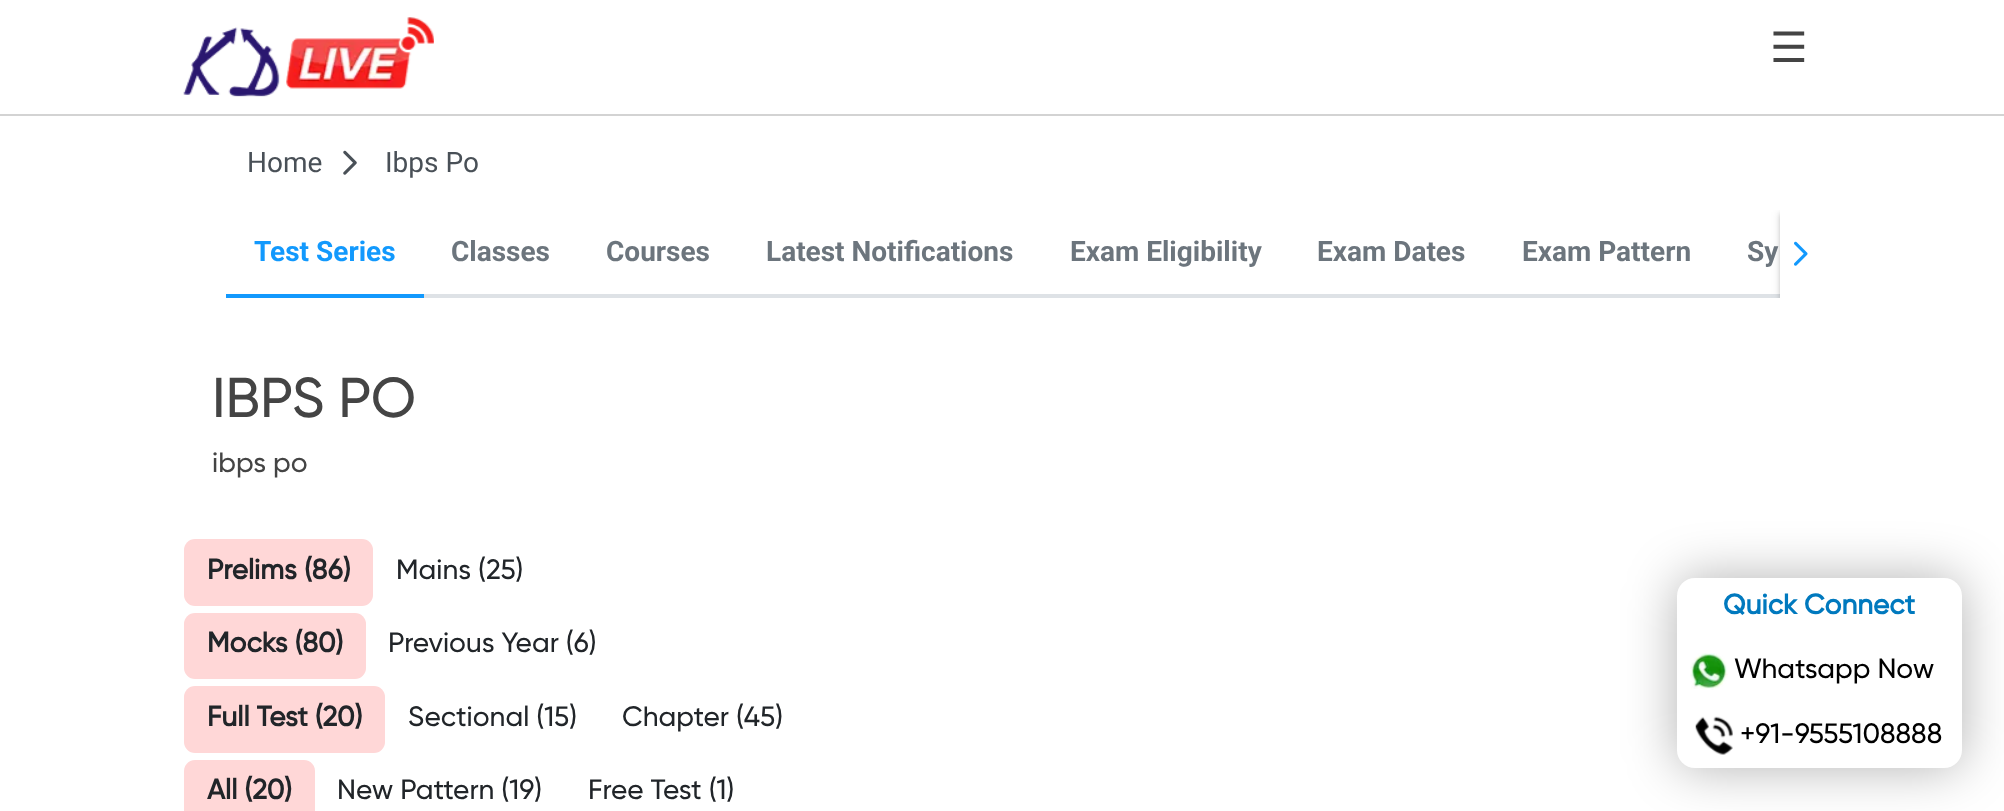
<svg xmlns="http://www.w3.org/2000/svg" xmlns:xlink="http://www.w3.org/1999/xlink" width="2004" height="811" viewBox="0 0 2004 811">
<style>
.cls-1{font:42px DejaVu Sans;fill:#444444}
.cls-2{font:28px Roboto;fill:#495057}
.cls-3{font:bold 28px Roboto;fill:#1299fd}
.cls-4{font:bold 28px Roboto;fill:#6c757d}
.cls-5{font:500 56px Gilroy;fill:#444444}
.cls-6{font:500 28px Gilroy;fill:#444444}
.cls-7{font:bold 28px Gilroy;fill:#212529}
.cls-8{font:500 28px Gilroy;fill:#212529}
.cls-9{font:bold 28px Gilroy;fill:#0079be}
.cls-10{font:500 28px Gilroy;fill:#000000}
</style>
<defs>
<clipPath id="clip1"><rect x="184" y="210" width="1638" height="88"/></clipPath>
</defs>
<rect width="100%" height="100%" fill="#ffffff"/>
<rect fill="#d3d3d3" x="0" y="114" width="2004" height="2"/>
<image xlink:href="image0.png" x="183" y="17" width="251" height="80"/>
<image xlink:href="image1.png" x="343" y="150" width="14" height="25"/>
<rect fill="#1299fd" x="226" y="294" width="198" height="4"/>
<rect fill="#dee2e6" x="424" y="294" width="1356" height="4"/>
<g clip-path="url(#clip1)">
<rect fill="#000000" fill-opacity="0.12" filter="blur(4.5px)" x="1780" y="212" width="42" height="87"/>
<rect fill="#000000" fill-opacity="0.14" filter="blur(2px)" x="1780" y="214" width="42" height="87"/>
</g>
<rect fill="#ffffff" x="1780" y="210" width="42" height="88"/>
<image xlink:href="image2.png" x="1794" y="241" width="14" height="25"/>
<rect fill="#ffd7d7" x="184" y="539" width="189" height="67" rx="11"/>
<rect fill="#ffd7d7" x="184" y="613" width="182" height="66" rx="11"/>
<rect fill="#ffd7d7" x="184" y="686" width="201" height="67" rx="11"/>
<path fill="#ffd7d7" d="M195 760H304C310 760 315 765 315 771V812H184V771C184 765 189 760 195 760Z"/>
<rect fill="#000000" fill-opacity="0.3" filter="blur(26px)" x="1677" y="578" width="285" height="190" rx="18"/>
<rect fill="#ffffff" x="1677" y="578" width="285" height="190" rx="18"/>
<image xlink:href="image3.png" x="1690" y="653" width="38" height="37"/>
<image xlink:href="image4.png" x="1695" y="716" width="38" height="39"/>
<text class="cls-1" x="1770" y="62">☰</text>
<text class="cls-2" x="247" y="172">Home</text>
<text class="cls-2" x="385" y="172">Ibps Po</text>
<text class="cls-3" x="254" y="261">Test Series</text>
<text class="cls-4" x="451" y="261">Classes</text>
<text class="cls-4" x="606" y="261">Courses</text>
<text class="cls-4" x="766" y="261">Latest Notifications</text>
<text class="cls-4" x="1070" y="261">Exam Eligibility</text>
<text class="cls-4" x="1317" y="261">Exam Dates</text>
<text class="cls-4" x="1522" y="261">Exam Pattern</text>
<text class="cls-4" x="1747" y="261">Sy</text>
<text class="cls-5" x="212" y="417">IBPS PO</text>
<text class="cls-6" x="212" y="472">ibps po</text>
<text class="cls-7" x="207" y="579">Prelims (86)</text>
<text class="cls-8" x="396" y="579">Mains (25)</text>
<text class="cls-7" x="207" y="652">Mocks (80)</text>
<text class="cls-8" x="388" y="652">Previous Year (6)</text>
<text class="cls-7" x="207" y="726">Full Test (20)</text>
<text class="cls-8" x="408" y="726">Sectional (15)</text>
<text class="cls-8" x="622" y="726">Chapter (45)</text>
<text class="cls-7" x="207" y="799">All (20)</text>
<text class="cls-8" x="337" y="799">New Pattern (19)</text>
<text class="cls-8" x="588" y="799">Free Test (1)</text>
<text class="cls-9" x="1723" y="614">Quick Connect</text>
<text class="cls-10" x="1734" y="678">Whatsapp Now</text>
<text class="cls-10" x="1740" y="743">+91-9555108888</text>
</svg>
